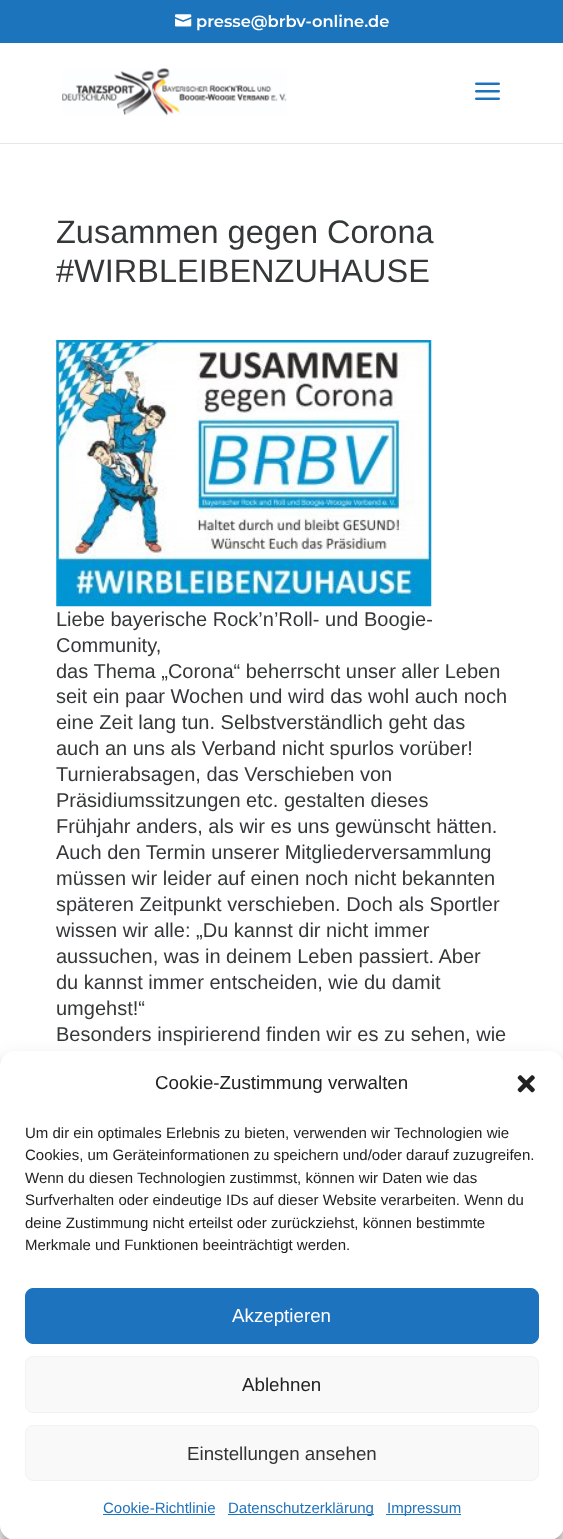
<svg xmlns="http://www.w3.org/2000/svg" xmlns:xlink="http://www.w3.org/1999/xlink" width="563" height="1539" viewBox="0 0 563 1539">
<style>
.cls-1{font:600 16.25px Montserrat;fill:#ffffff}
.cls-2{font:32.5px Liberation Sans;fill:#343839}
.cls-3{font:20px Liberation Sans;fill:#343839}
.cls-4{font:18.75px Liberation Sans;fill:#222222}
.cls-5{font:15px Liberation Sans;fill:#222222}
.cls-6{font:18.75px Liberation Sans;fill:#ffffff}
.cls-7{font:18.75px Liberation Sans;fill:#333333}
.cls-8{font:15px Liberation Sans;fill:#1e73be}
</style>
<rect width="100%" height="100%" fill="#ffffff"/>
<rect fill="#1c74bc" x="0" y="0" width="563" height="43"/>
<image xlink:href="image0.png" x="175" y="14" width="17" height="13"/>
<path fill="#e6e6e6" d="M0 142V144H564V44V142Z"/>
<rect fill="#ffffff" x="0" y="142" width="563" height="1"/>
<image xlink:href="image1.png" x="62" y="68" width="225" height="48"/>
<image xlink:href="image2.png" x="475" y="82" width="25" height="18"/>
<image xlink:href="image3.png" x="56" y="340" width="376" height="267"/>
<rect fill="#000000" fill-opacity="0.23" filter="blur(4px)" x="0" y="1059" width="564" height="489" rx="15"/>
<rect fill="#000000" fill-opacity="0.19" filter="blur(12.5px)" x="0" y="1064" width="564" height="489" rx="15"/>
<rect fill="#ffffff" x="0" y="1051" width="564" height="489" rx="15"/>
<image xlink:href="image4.png" x="517" y="1075" width="18" height="18"/>
<rect fill="#1e73be" stroke="#1e73be" x="25.5" y="1288.5" width="513" height="55" rx="7.5"/>
<rect fill="#f9f9f9" stroke="#f2f2f2" x="25.5" y="1356.5" width="513" height="56" rx="7.5"/>
<rect fill="#f9f9f9" stroke="#f2f2f2" x="25.5" y="1425.5" width="513" height="55" rx="7.5"/>
<rect fill="#1e73be" x="103" y="1514" width="112" height="1"/>
<rect fill="#1e73be" x="228" y="1514" width="146" height="1"/>
<rect fill="#1e73be" x="386" y="1514" width="75" height="1"/>
<text class="cls-1" x="196" y="27">presse@brbv-online.de</text>
<text class="cls-2"><tspan x="56" y="243">Zusammen gegen Corona</tspan><tspan x="56" y="282">#WIRBLEIBENZUHAUSE</tspan></text>
<text class="cls-3"><tspan x="56" y="626">Liebe bayerische Rock’n’Roll- und Boogie-</tspan><tspan x="56" y="652">Community,</tspan><tspan x="56" y="678">das Thema „Corona“ beherrscht unser aller Leben</tspan><tspan x="56" y="703">seit ein paar Wochen und wird das wohl auch noch</tspan><tspan x="56" y="729">eine Zeit lang tun. Selbstverständlich geht das</tspan><tspan x="56" y="755">auch an uns als Verband nicht spurlos vorüber!</tspan><tspan x="56" y="781">Turnierabsagen, das Verschieben von</tspan><tspan x="56" y="807">Präsidiumssitzungen etc. gestalten dieses</tspan><tspan x="56" y="833">Frühjahr anders, als wir es uns gewünscht hätten.</tspan><tspan x="56" y="859">Auch den Termin unserer Mitgliederversammlung</tspan><tspan x="56" y="885">müssen wir leider auf einen noch nicht bekannten</tspan><tspan x="56" y="911">späteren Zeitpunkt verschieben. Doch als Sportler</tspan><tspan x="56" y="937">wissen wir alle: „Du kannst dir nicht immer</tspan><tspan x="56" y="963">aussuchen, was in deinem Leben passiert. Aber</tspan><tspan x="56" y="989">du kannst immer entscheiden, wie du damit</tspan><tspan x="56" y="1015">umgehst!“</tspan><tspan x="56" y="1041">Besonders inspirierend finden wir es zu sehen, wie</tspan></text>
<text class="cls-4" x="155" y="1089">Cookie-Zustimmung verwalten</text>
<text class="cls-5"><tspan x="25" y="1138">Um dir ein optimales Erlebnis zu bieten, verwenden wir Technologien wie</tspan><tspan x="25" y="1160">Cookies, um Geräteinformationen zu speichern und/oder darauf zuzugreifen.</tspan><tspan x="25" y="1183">Wenn du diesen Technologien zustimmst, können wir Daten wie das</tspan><tspan x="25" y="1205">Surfverhalten oder eindeutige IDs auf dieser Website verarbeiten. Wenn du</tspan><tspan x="25" y="1228">deine Zustimmung nicht erteilst oder zurückziehst, können bestimmte</tspan><tspan x="25" y="1250">Merkmale und Funktionen beeinträchtigt werden.</tspan></text>
<text class="cls-6" x="232" y="1322">Akzeptieren</text>
<text class="cls-4" x="242" y="1391">Ablehnen</text>
<text class="cls-7" x="187" y="1460">Einstellungen ansehen</text>
<text class="cls-8" x="103" y="1513">Cookie-Richtlinie</text>
<text class="cls-8" x="228" y="1513">Datenschutzerklärung</text>
<text class="cls-8" x="387" y="1513">Impressum</text>
</svg>
